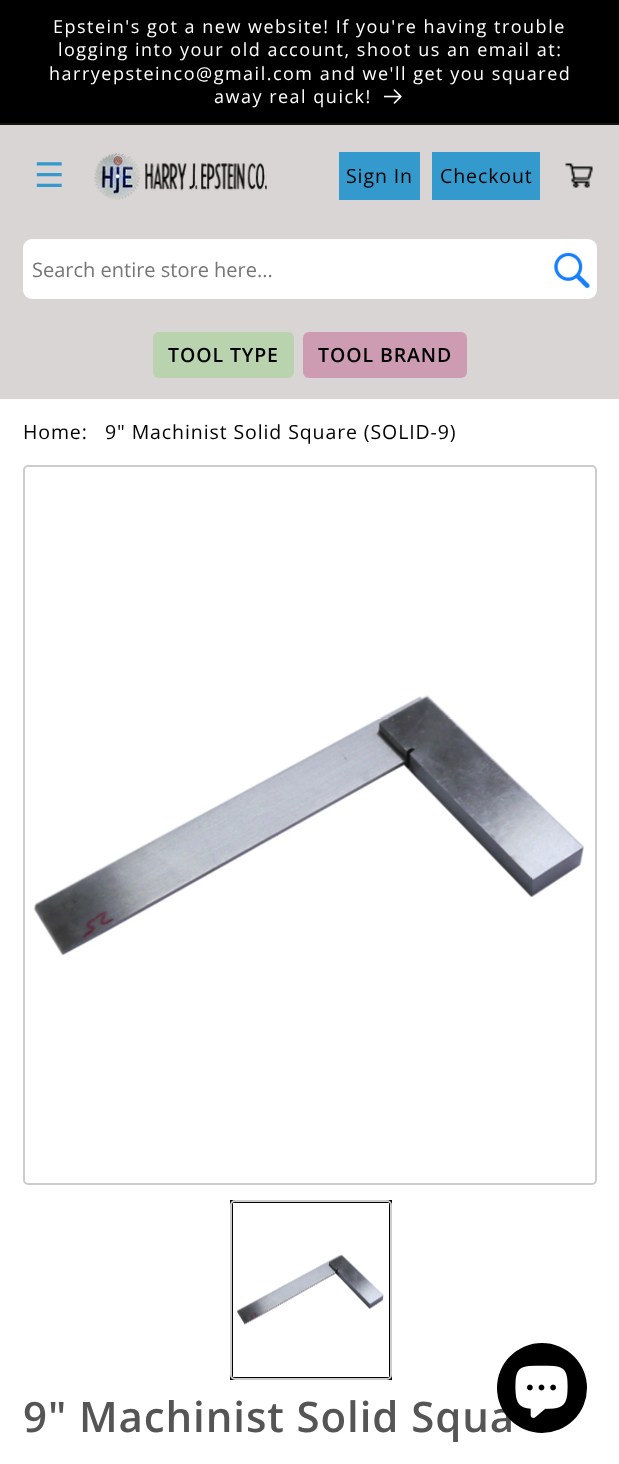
<svg xmlns="http://www.w3.org/2000/svg" xmlns:xlink="http://www.w3.org/1999/xlink" width="619" height="1464" viewBox="0 0 619 1464">
<style>
.cls-1{font:18px Open Sans;letter-spacing:1.5px;fill:#ffffff}
.cls-2{font:34px DejaVu Sans;fill:#3499cc}
.cls-3{font:19.5px Open Sans;letter-spacing:0.9px;fill:#000000}
.cls-4{font:20px Open Sans;fill:#757575}
.cls-5{font:600 19.5px Open Sans;letter-spacing:0.9px;fill:#000000}
.cls-6{font:600 42px Open Sans;letter-spacing:0.9px;fill:#555555}
</style>
<rect width="100%" height="100%" fill="#ffffff"/>
<rect fill="#000000" x="0" y="0" width="619" height="123"/>
<rect fill="#141414" x="0" y="123" width="619" height="2"/>
<image xlink:href="image0.png" x="384" y="89" width="18" height="15"/>
<rect fill="#d9d5d4" x="0" y="125" width="619" height="274"/>
<image xlink:href="image1.png" x="94" y="153" width="173" height="47"/>
<rect fill="#3499cc" x="339" y="152" width="81" height="48"/>
<rect fill="#3499cc" x="432" y="152" width="108" height="48"/>
<image xlink:href="image2.png" x="565" y="163" width="28" height="25"/>
<rect fill="#ffffff" x="23" y="239" width="574" height="60" rx="9"/>
<image xlink:href="image3.png" x="554" y="252" width="36" height="37"/>
<rect fill="#b9d3ae" x="153" y="332" width="141" height="46" rx="6"/>
<rect fill="#ce9cb2" x="303" y="332" width="164" height="46" rx="6"/>
<rect fill="none" stroke="#cccccc" stroke-width="2" x="24" y="466" width="572" height="718" rx="4"/>
<image xlink:href="image4.png" x="33" y="695" width="552" height="261"/>
<rect fill="none" stroke="#000000" stroke-width="3" x="231.5" y="1201.5" width="159" height="177"/>
<rect fill="none" stroke="#cccccc" stroke-width="2" x="231" y="1201" width="160" height="178" rx="4"/>
<image xlink:href="image5.png" x="237" y="1254" width="147" height="71"/>
<text class="cls-1" x="53" y="33">Epstein's got a new website! If you're having trouble</text>
<text class="cls-1" x="58" y="56">logging into your old account, shoot us an email at:</text>
<text class="cls-1" x="49" y="80">harryepsteinco@gmail.com and we'll get you squared</text>
<text class="cls-1" x="214" y="103">away real quick!</text>
<text class="cls-2" x="34" y="187">☰</text>
<text class="cls-3" x="346" y="183">Sign In</text>
<text class="cls-3" x="440" y="183">Checkout</text>
<text class="cls-4" x="32" y="277">Search entire store here...</text>
<text class="cls-5" x="168" y="362">TOOL TYPE</text>
<text class="cls-5" x="318" y="362">TOOL BRAND</text>
<text class="cls-3" x="23" y="439">Home:</text>
<text class="cls-3" x="105" y="439">9" Machinist Solid Square (SOLID-9)</text>
<text class="cls-6" x="23" y="1432">9" Machinist Solid Squa</text>
<circle fill="#000000" cx="542" cy="1388" r="45"/>
<image xlink:href="image6.png" x="515" y="1365" width="53" height="53"/>
</svg>
